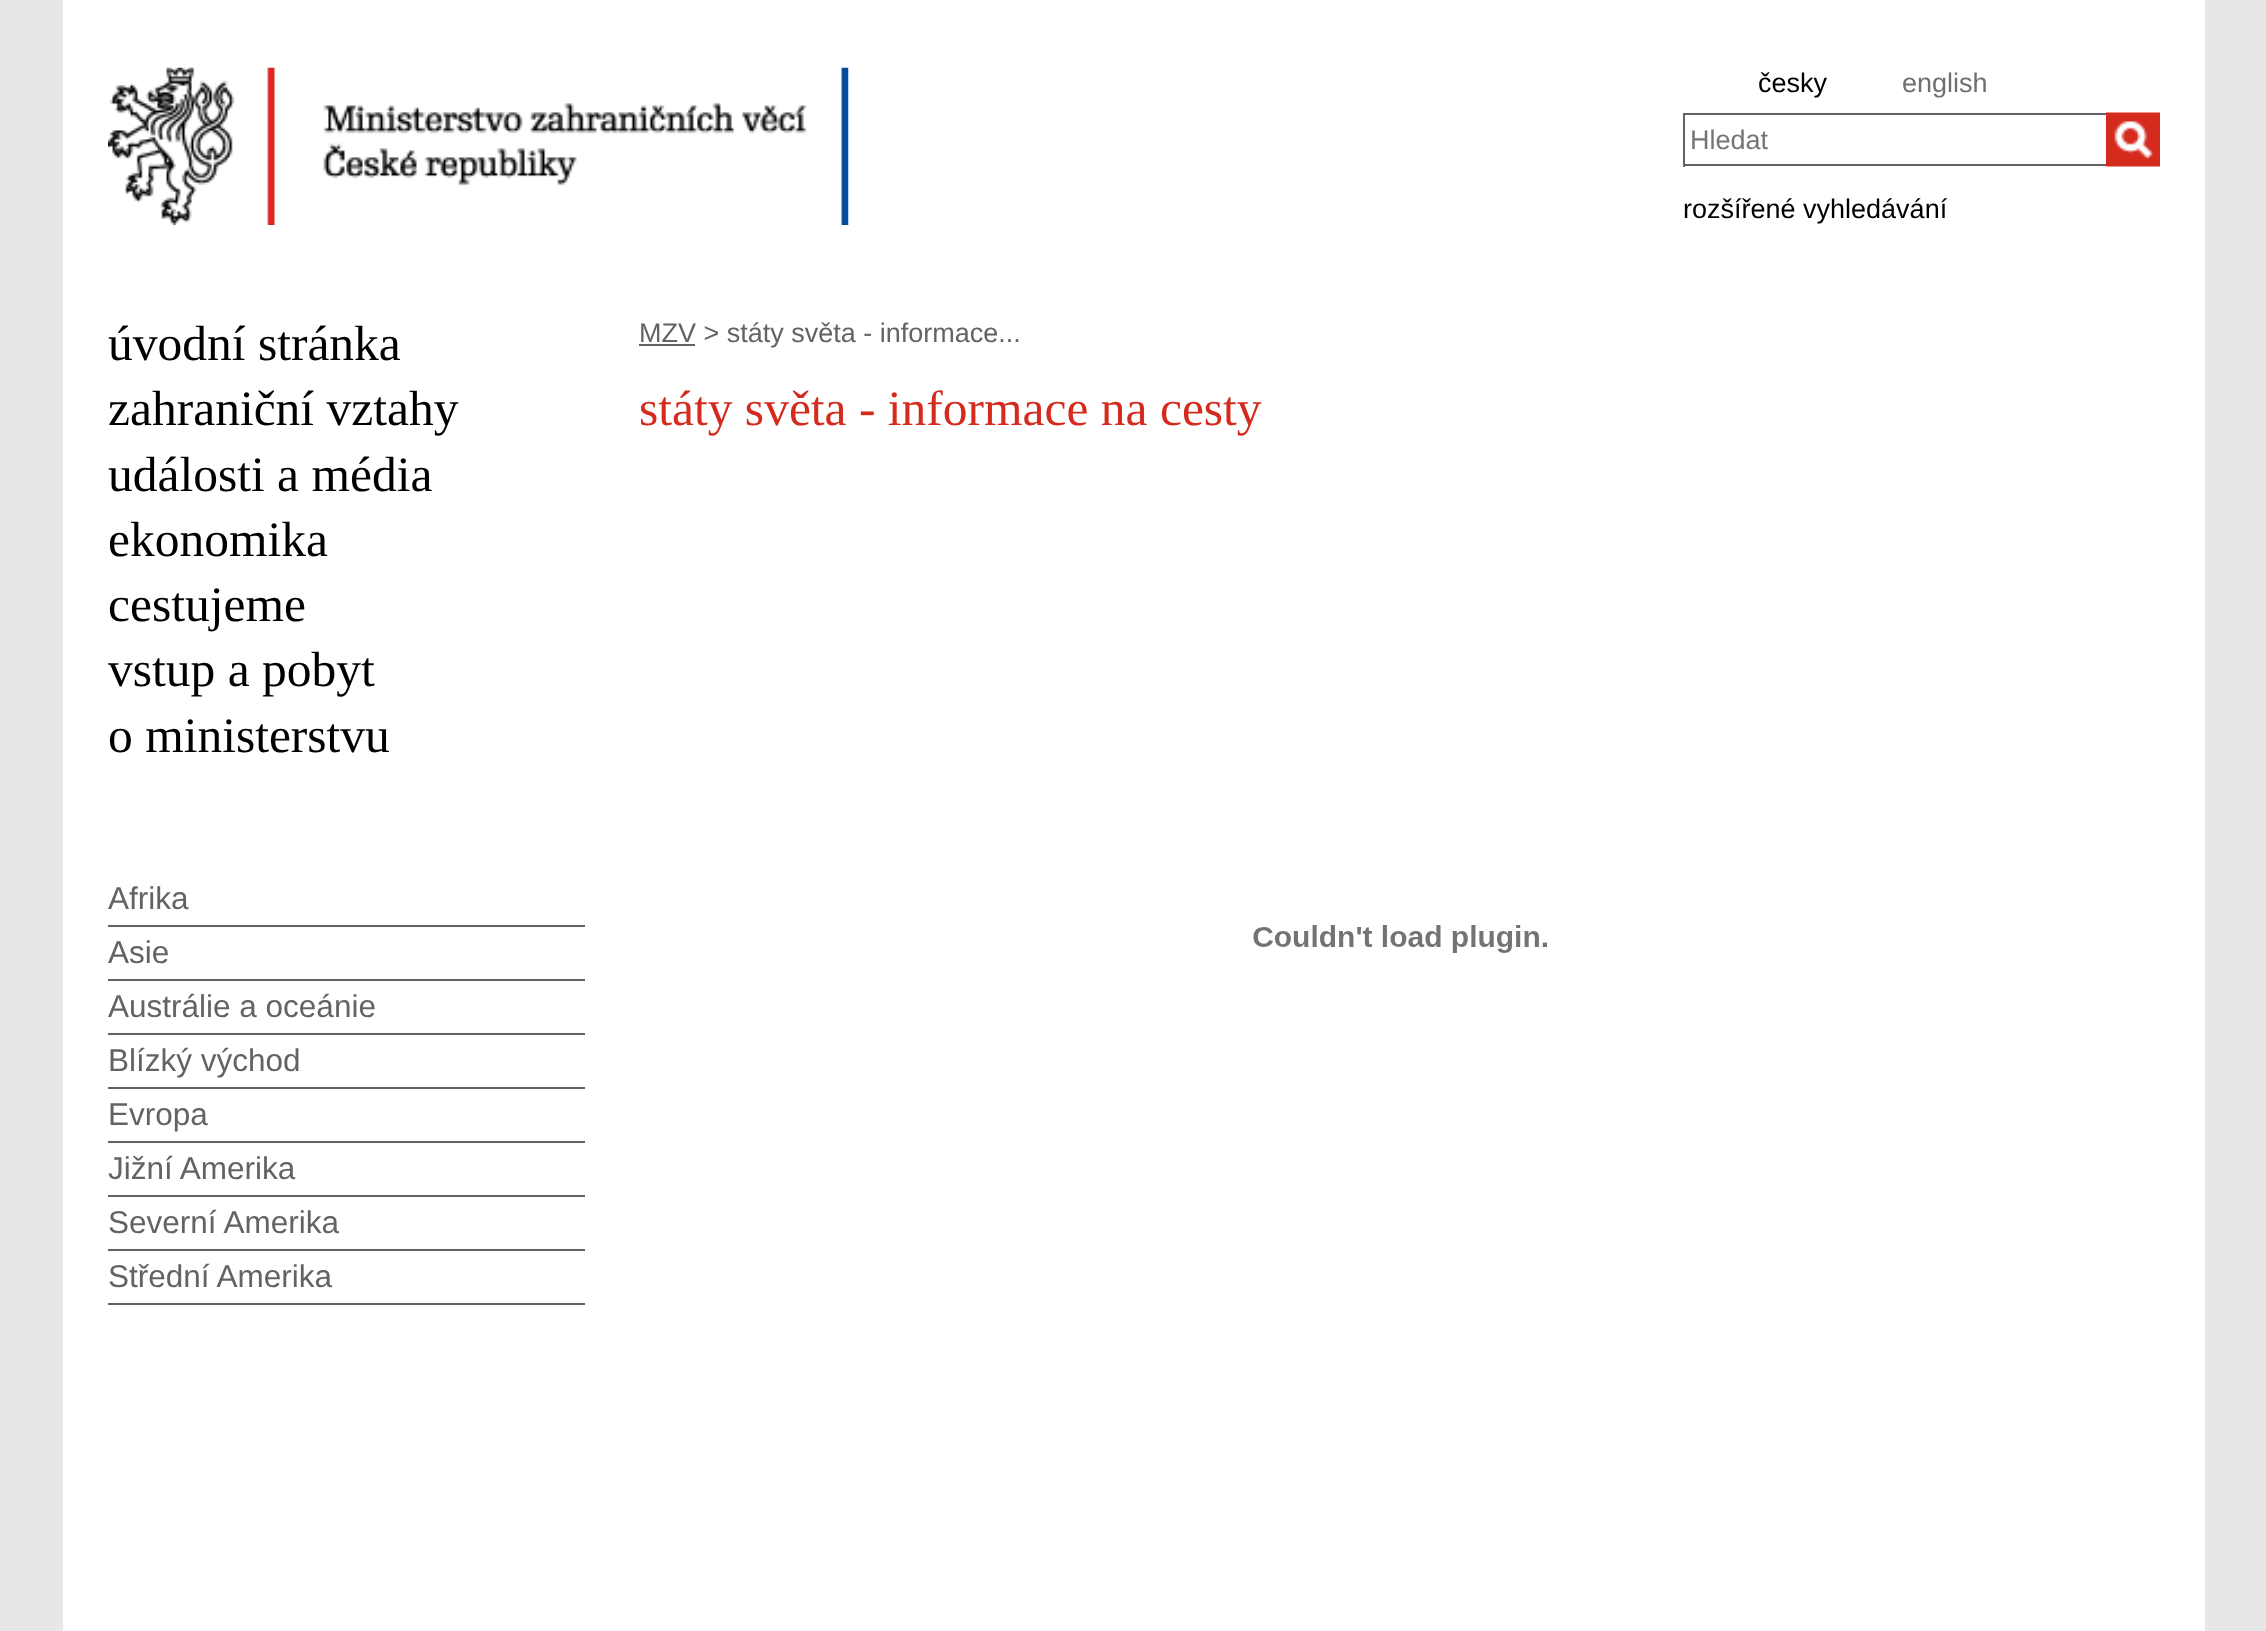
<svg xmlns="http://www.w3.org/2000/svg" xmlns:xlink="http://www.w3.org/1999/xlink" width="2266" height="1631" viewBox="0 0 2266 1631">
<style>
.cls-1{font:27px Liberation Sans;fill:#000000}
.cls-2{font:27px Liberation Sans;fill:#6d6f72}
.cls-3{font:27px Liberation Sans;fill:#757575}
.cls-4{font:49.5px Liberation Serif;fill:#000000}
.cls-5{font:27px Liberation Sans;fill:#616365}
.cls-6{font:49.5px Liberation Serif;fill:#d52b1e}
.cls-7{font:31.5px Liberation Sans;fill:#616365}
</style>
<rect width="100%" height="100%" fill="#e7e7e7"/>
<rect fill="#ffffff" x="63" y="0" width="2142" height="1631"/>
<image xlink:href="image0.png" x="108" y="67" width="741" height="158"/>
<rect fill="#616365" x="1683" y="113" width="423" height="2"/>
<rect fill="#616365" x="1683" y="164" width="423" height="2"/>
<rect fill="#616365" x="1683" y="113" width="2" height="54"/>
<image xlink:href="image1.png" x="2106" y="112" width="54" height="55"/>
<rect fill="#616365" x="639" y="344" width="56" height="2"/>
<image xlink:href="image2.png" x="1253" y="925" width="294" height="28"/>
<rect fill="#616365" x="108" y="925" width="477" height="2"/>
<rect fill="#616365" x="108" y="979" width="477" height="2"/>
<rect fill="#616365" x="108" y="1033" width="477" height="2"/>
<rect fill="#616365" x="108" y="1087" width="477" height="2"/>
<rect fill="#616365" x="108" y="1141" width="477" height="2"/>
<rect fill="#616365" x="108" y="1195" width="477" height="2"/>
<rect fill="#616365" x="108" y="1249" width="477" height="2"/>
<rect fill="#616365" x="108" y="1303" width="477" height="2"/>
<text class="cls-1" x="1758" y="92">česky</text>
<text class="cls-2" x="1902" y="92">english</text>
<text class="cls-3" x="1690" y="149">Hledat</text>
<text class="cls-1" x="1683" y="218">rozšířené vyhledávání</text>
<text class="cls-4"><tspan x="108" y="360">úvodní stránka</tspan><tspan x="108" y="425">zahraniční vztahy</tspan><tspan x="108" y="491">události a média</tspan><tspan x="108" y="556">ekonomika</tspan><tspan x="108" y="621">cestujeme</tspan><tspan x="108" y="686">vstup a pobyt</tspan><tspan x="108" y="752">o ministerstvu</tspan></text>
<text class="cls-5" x="639" y="342">MZV &gt; státy světa - informace...</text>
<text class="cls-6" x="639" y="425">státy světa - informace na cesty</text>
<text class="cls-7"><tspan x="108" y="909">Afrika</tspan><tspan x="108" y="963">Asie</tspan><tspan x="108" y="1017">Austrálie a oceánie</tspan><tspan x="108" y="1071">Blízký východ</tspan><tspan x="108" y="1125">Evropa</tspan><tspan x="108" y="1179">Jižní Amerika</tspan><tspan x="108" y="1233">Severní Amerika</tspan><tspan x="108" y="1287">Střední Amerika</tspan></text>
</svg>
